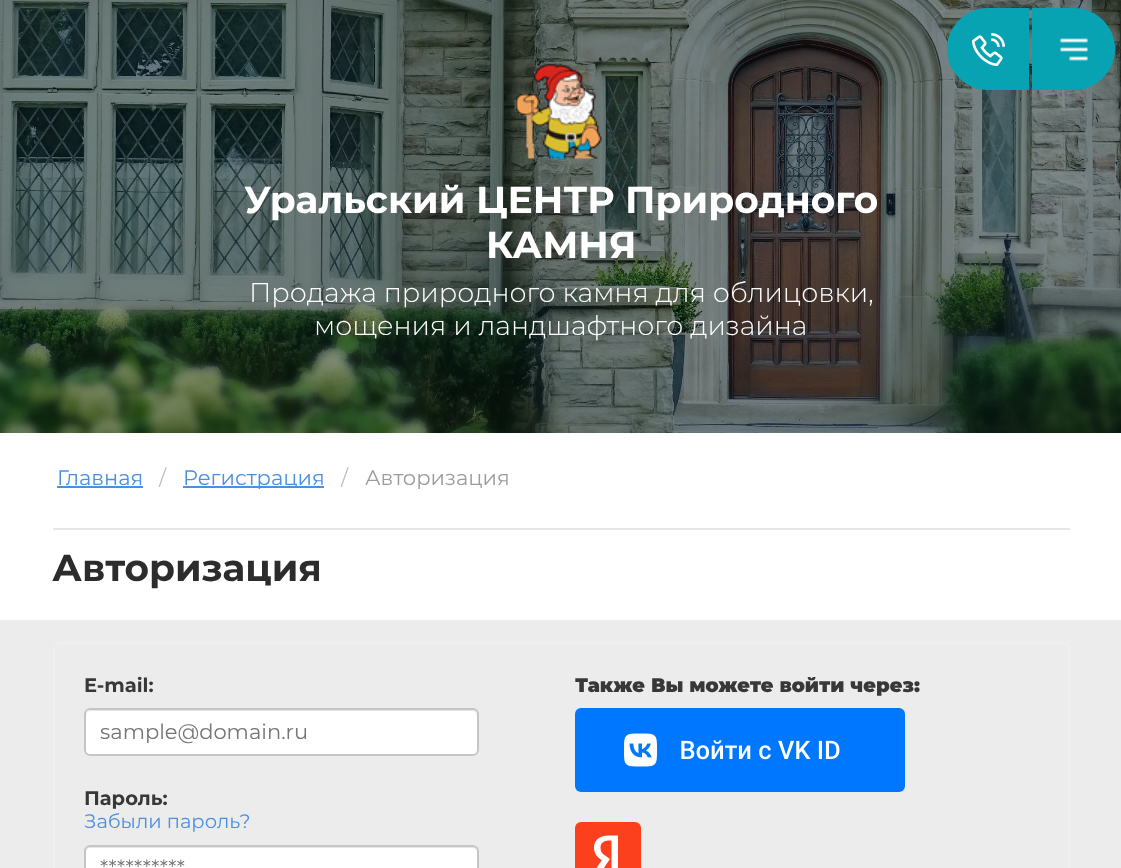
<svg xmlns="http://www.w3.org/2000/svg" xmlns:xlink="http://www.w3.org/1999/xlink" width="1121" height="868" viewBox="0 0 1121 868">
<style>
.cls-1{font:bold 37.5px Montserrat;fill:#ffffff}
.cls-2{font:300 27px Montserrat;fill:#ffffff}
.cls-3{font:21px Montserrat;fill:#4a90e2}
.cls-4{font:21px Montserrat;fill:#c0c0c0}
.cls-5{font:21px Montserrat;fill:#9c9c9c}
.cls-6{font:bold 37.5px Montserrat;fill:#2c2c2c}
.cls-7{font:bold 19.5px Montserrat;fill:#383838}
.cls-8{font:21px Montserrat;fill:#757575}
.cls-9{font:19.5px Montserrat;fill:#4a90e2}
.cls-10{font:900 19.5px Montserrat;fill:#383838}
</style>
<rect width="100%" height="100%" fill="#ffffff"/>
<image xlink:href="image2.png" x="0" y="0" width="1121" height="433"/>
<path fill="#07a3b3" d="M988 8H1029V90H988C965.5 90 947 71.5 947 49C947 26.5 965.5 8 988 8Z"/>
<image xlink:href="image0.png" x="972" y="33" width="33" height="33"/>
<path fill="#07a3b3" d="M1032 8H1074C1096.5 8 1115 26.5 1115 49C1115 71.5 1096.5 90 1074 90H1032Z"/>
<image xlink:href="image1.png" x="1060" y="38" width="28" height="23"/>
<image xlink:href="image3.png" x="514" y="63" width="88" height="96"/>
<rect fill="#e6e6e6" x="53" y="528" width="1017" height="2"/>
<rect fill="#4a90e2" x="57" y="486" width="86" height="2"/>
<rect fill="#4a90e2" x="183" y="486" width="141" height="2"/>
<rect fill="#ececec" x="0" y="620" width="1121" height="248"/>
<rect fill="none" stroke="#efefef" stroke-width="2" x="54" y="643" width="1015" height="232" rx="5"/>
<rect fill="#ffffff" x="84" y="708" width="395" height="48" rx="6"/>
<path fill="#e6e6e6" d="M90 711H472C475 711 477 713 477 716V715C477 712 475 710 472 710H91C88 710 86 712 86 715V716C86 713 88 711 90 711Z"/>
<rect fill="none" stroke="#c5c5c5" stroke-width="2" x="85" y="709" width="393" height="46" rx="5"/>
<rect fill="#ffffff" x="84" y="845" width="395" height="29" rx="6"/>
<path fill="#e6e6e6" d="M90 848H472C475 848 477 850 477 852V851C477 848 475 846 472 846H91C88 846 86 848 86 851V852C86 850 88 848 90 848Z"/>
<rect fill="none" stroke="#c5c5c5" stroke-width="2" x="85" y="846" width="393" height="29" rx="5"/>
<rect fill="#0077ff" x="575" y="708" width="330" height="84" rx="6"/>
<image xlink:href="image4.png" x="624" y="733" width="216" height="34"/>
<rect fill="#fc3f1d" x="575" y="822" width="66" height="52" rx="6"/>
<path fill="#ffffff" d="M611.5 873H618V835.5H608.5C599 835.5 594 840.5 594 847.5C594 854 597.5 857.5 603 861L606.5 863.5L602 860L593 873H600.5L610 859L606.5 856.5C602.5 854 600.5 852 600.5 847.5C600.5 843.5 603.5 840.5 608.5 840.5H611.5Z"/>
<text class="cls-1" x="244" y="213">Уральский ЦЕНТР Природного</text>
<text class="cls-1" x="486" y="258">КАМНЯ</text>
<text class="cls-2" x="249" y="302">Продажа природного камня для облицовки,</text>
<text class="cls-2" x="314" y="335">мощения и ландшафтного дизайна</text>
<text class="cls-3" x="57" y="485">Главная</text>
<text class="cls-4" x="159" y="485">/</text>
<text class="cls-3" x="183" y="485">Регистрация</text>
<text class="cls-4" x="341" y="485">/</text>
<text class="cls-5" x="365" y="485">Авторизация</text>
<text class="cls-6" x="52" y="581">Авторизация</text>
<text class="cls-7" x="84" y="692">E-mail:</text>
<text class="cls-8" x="100" y="739">sample@domain.ru</text>
<text class="cls-7" x="84" y="805">Пароль:</text>
<text class="cls-9" x="84" y="828">Забыли пароль?</text>
<text class="cls-8" x="100" y="875">**********</text>
<text class="cls-10" x="575" y="692">Также Вы можете войти через:</text>
</svg>
